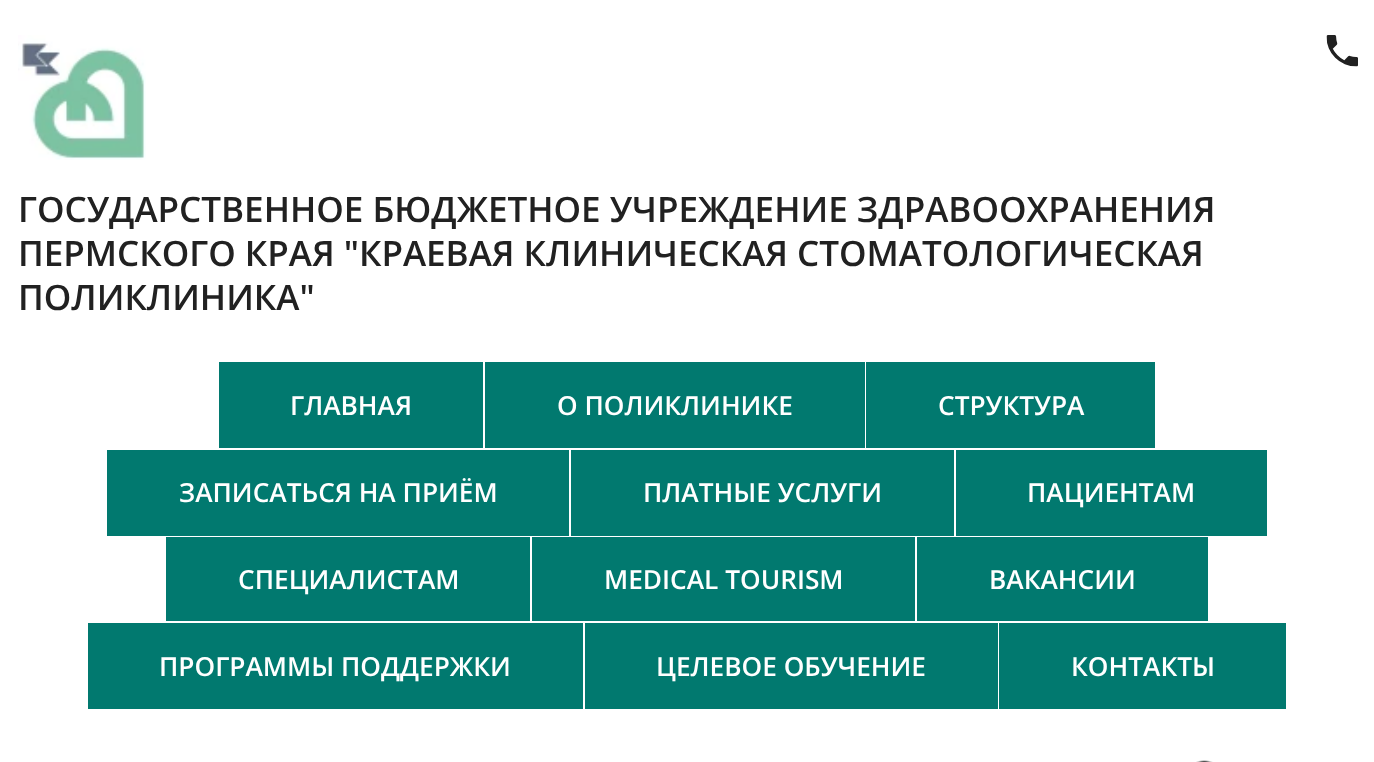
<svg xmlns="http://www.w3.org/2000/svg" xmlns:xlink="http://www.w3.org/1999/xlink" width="1374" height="762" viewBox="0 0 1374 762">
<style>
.cls-1{font:600 35px Open Sans;fill:#212121}
.cls-2{font:600 26.25px Open Sans;fill:#ffffff}
</style>
<rect width="100%" height="100%" fill="#ffffff"/>
<image xlink:href="image0.png" x="1326" y="35" width="32" height="32"/>
<image xlink:href="image1.png" x="18" y="35" width="128" height="125"/>
<rect fill="#01796f" x="219" y="362" width="264" height="86"/>
<rect fill="#01796f" x="485" y="362" width="380" height="86"/>
<rect fill="#01796f" x="866" y="362" width="289" height="86"/>
<rect fill="#01796f" x="107" y="450" width="462" height="86"/>
<rect fill="#01796f" x="571" y="450" width="383" height="86"/>
<rect fill="#01796f" x="956" y="450" width="311" height="86"/>
<rect fill="#01796f" x="166" y="537" width="364" height="84"/>
<rect fill="#01796f" x="532" y="537" width="383" height="84"/>
<rect fill="#01796f" x="917" y="537" width="291" height="84"/>
<rect fill="#01796f" x="88" y="623" width="495" height="86"/>
<rect fill="#01796f" x="585" y="623" width="413" height="86"/>
<rect fill="#01796f" x="999" y="623" width="287" height="86"/>
<image xlink:href="image2.png" x="1196" y="760" width="17" height="2"/>
<text class="cls-1"><tspan x="18" y="222">ГОСУДАРСТВЕННОЕ БЮДЖЕТНОЕ УЧРЕЖДЕНИЕ ЗДРАВООХРАНЕНИЯ</tspan><tspan x="18" y="266">ПЕРМСКОГО КРАЯ "КРАЕВАЯ КЛИНИЧЕСКАЯ СТОМАТОЛОГИЧЕСКАЯ</tspan><tspan x="18" y="310">ПОЛИКЛИНИКА"</tspan></text>
<text class="cls-2" x="290" y="415">ГЛАВНАЯ</text>
<text class="cls-2" x="557" y="415">О ПОЛИКЛИНИКЕ</text>
<text class="cls-2" x="938" y="415">СТРУКТУРА</text>
<text class="cls-2" x="179" y="502">ЗАПИСАТЬСЯ НА ПРИЁМ</text>
<text class="cls-2" x="643" y="502">ПЛАТНЫЕ УСЛУГИ</text>
<text class="cls-2" x="1027" y="502">ПАЦИЕНТАМ</text>
<text class="cls-2" x="238" y="589">СПЕЦИАЛИСТАМ</text>
<text class="cls-2" x="604" y="589">MEDICAL TOURISM</text>
<text class="cls-2" x="989" y="589">ВАКАНСИИ</text>
<text class="cls-2" x="159" y="676">ПРОГРАММЫ ПОДДЕРЖКИ</text>
<text class="cls-2" x="656" y="676">ЦЕЛЕВОЕ ОБУЧЕНИЕ</text>
<text class="cls-2" x="1071" y="676">КОНТАКТЫ</text>
</svg>
